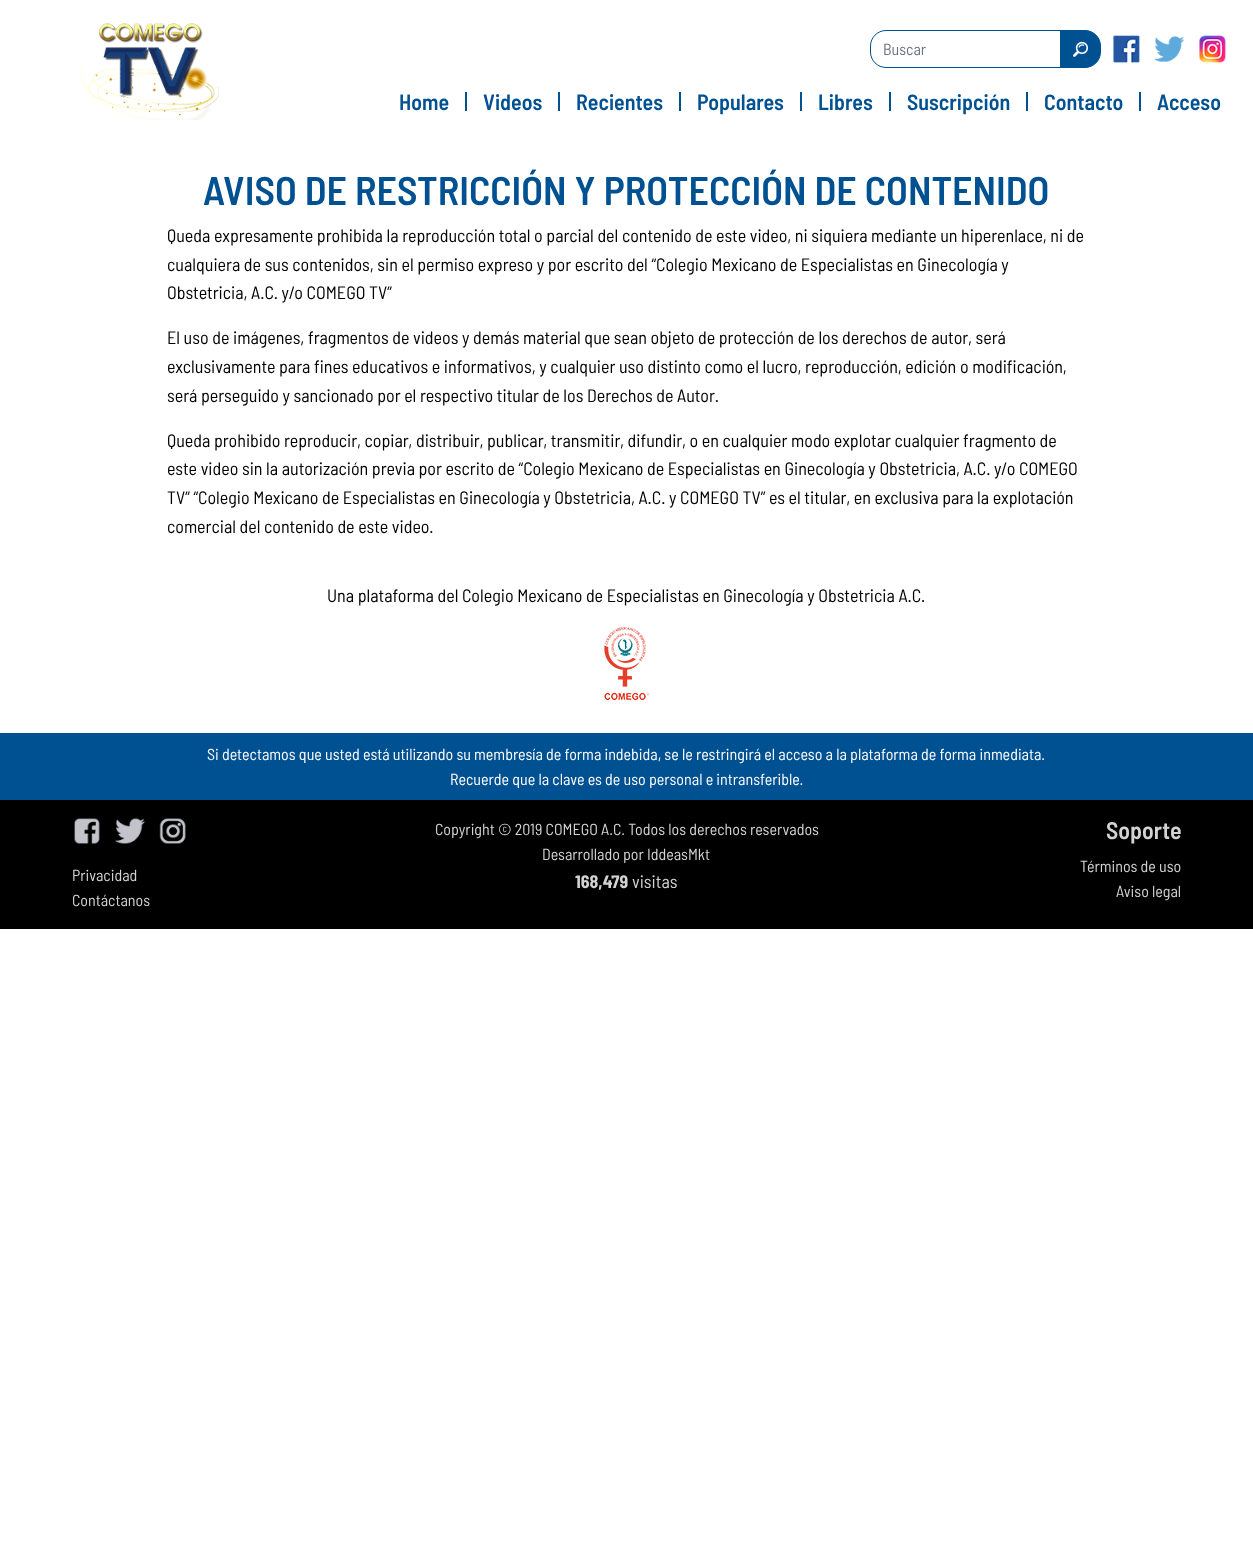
<svg xmlns="http://www.w3.org/2000/svg" xmlns:xlink="http://www.w3.org/1999/xlink" width="1253" height="1555" viewBox="0 0 1253 1555">
<style>
.cls-1{font:16px Barlow Semi Condensed;fill:#6c757d}
.cls-2{font:600 22px Barlow Semi Condensed;fill:#005192}
.cls-3{font:600 40px Barlow Semi Condensed;fill:#005192}
.cls-4{font:18px Barlow Semi Condensed;fill:#000000}
.cls-5{font:16px Barlow Semi Condensed;fill:#ffffff}
.cls-6{font:16px Barlow Semi Condensed;fill:#d3d3d3}
.cls-7{font:bold 18px Barlow Semi Condensed;fill:#d3d3d3}
.cls-8{font:18px Barlow Semi Condensed;fill:#d3d3d3}
.cls-9{font:600 24px Barlow Semi Condensed;fill:#d3d3d3}
</style>
<rect width="100%" height="100%" fill="#ffffff"/>
<image xlink:href="image0.png" x="80" y="23" width="139" height="97"/>
<path fill="#005192" stroke="#005192" d="M1060.5 30.5H1085C1093.5 30.5 1100.5 37.5 1100.5 46V52C1100.5 60.5 1093.5 67.5 1085 67.5H1060.5Z"/>
<path fill="none" stroke="#005192" d="M886 30.5H1060.5V67.5H886C877.5 67.5 870.5 60.5 870.5 52V46C870.5 37.5 877.5 30.5 886 30.5Z"/>
<image xlink:href="image1.png" x="1073" y="41" width="15" height="16"/>
<image xlink:href="image2.png" x="1113" y="35" width="27" height="28"/>
<image xlink:href="image3.png" x="1154" y="36" width="30" height="26"/>
<image xlink:href="image4.png" x="1199" y="35" width="27" height="28"/>
<rect fill="#005192" x="465" y="92" width="2" height="19"/>
<rect fill="#005192" x="558" y="92" width="2" height="19"/>
<rect fill="#005192" x="679" y="92" width="2" height="19"/>
<rect fill="#005192" x="800" y="92" width="2" height="19"/>
<rect fill="#005192" x="889" y="92" width="2" height="19"/>
<rect fill="#005192" x="1026" y="92" width="2" height="19"/>
<rect fill="#005192" x="1139" y="92" width="2" height="19"/>
<image xlink:href="image5.png" x="604" y="627" width="45" height="73"/>
<rect fill="#000000" x="0" y="800" width="1253" height="129"/>
<rect fill="#005192" x="0" y="733" width="1253" height="67"/>
<image xlink:href="image6.png" x="74" y="818" width="26" height="26"/>
<image xlink:href="image7.png" x="115" y="818" width="30" height="26"/>
<image xlink:href="image8.png" x="159" y="818" width="27" height="26"/>
<text class="cls-1" x="883" y="55">Buscar</text>
<text class="cls-2" x="399" y="110">Home</text>
<text class="cls-2" x="483" y="110">Videos</text>
<text class="cls-2" x="576" y="110">Recientes</text>
<text class="cls-2" x="697" y="110">Populares</text>
<text class="cls-2" x="818" y="110">Libres</text>
<text class="cls-2" x="907" y="110">Suscripción</text>
<text class="cls-2" x="1044" y="110">Contacto</text>
<text class="cls-2" x="1157" y="110">Acceso</text>
<text class="cls-3" x="203" y="205">AVISO DE RESTRICCIÓN Y PROTECCIÓN DE CONTENIDO</text>
<text class="cls-4"><tspan x="167" y="242">Queda expresamente prohibida la reproducción total o parcial del contenido de este video, ni siquiera mediante un hiperenlace, ni de</tspan><tspan x="167" y="271">cualquiera de sus contenidos, sin el permiso expreso y por escrito del “Colegio Mexicano de Especialistas en Ginecología y</tspan><tspan x="167" y="299">Obstetricia, A.C. y/o COMEGO TV”</tspan></text>
<text class="cls-4"><tspan x="167" y="344">El uso de imágenes, fragmentos de videos y demás material que sean objeto de protección de los derechos de autor, será</tspan><tspan x="167" y="373">exclusivamente para fines educativos e informativos, y cualquier uso distinto como el lucro, reproducción, edición o modificación,</tspan><tspan x="167" y="402">será perseguido y sancionado por el respectivo titular de los Derechos de Autor.</tspan></text>
<text class="cls-4"><tspan x="167" y="447">Queda prohibido reproducir, copiar, distribuir, publicar, transmitir, difundir, o en cualquier modo explotar cualquier fragmento de</tspan><tspan x="167" y="475">este video sin la autorización previa por escrito de “Colegio Mexicano de Especialistas en Ginecología y Obstetricia, A.C. y/o COMEGO</tspan><tspan x="167" y="504">TV” “Colegio Mexicano de Especialistas en Ginecología y Obstetricia, A.C. y COMEGO TV” es el titular, en exclusiva para la explotación</tspan><tspan x="167" y="533">comercial del contenido de este video.</tspan></text>
<text class="cls-4" x="327" y="602">Una plataforma del Colegio Mexicano de Especialistas en Ginecología y Obstetricia A.C.</text>
<text class="cls-5" x="207" y="760">Si detectamos que usted está utilizando su membresía de forma indebida, se le restringirá el acceso a la plataforma de forma inmediata.</text>
<text class="cls-5" x="450" y="785">Recuerde que la clave es de uso personal e intransferible.</text>
<text class="cls-6"><tspan x="72" y="881">Privacidad</tspan><tspan x="72" y="906">Contáctanos</tspan></text>
<text class="cls-6" x="435" y="835">Copyright © 2019 COMEGO A.C. Todos los derechos reservados</text>
<text class="cls-6" x="542" y="860">Desarrollado por IddeasMkt</text>
<text class="cls-7" x="575" y="888">168,479</text>
<text class="cls-8" x="632" y="888">visitas</text>
<text class="cls-9" x="1106" y="839">Soporte</text>
<text class="cls-6" x="1080" y="872">Términos de uso</text>
<text class="cls-6" x="1116" y="897">Aviso legal</text>
</svg>
